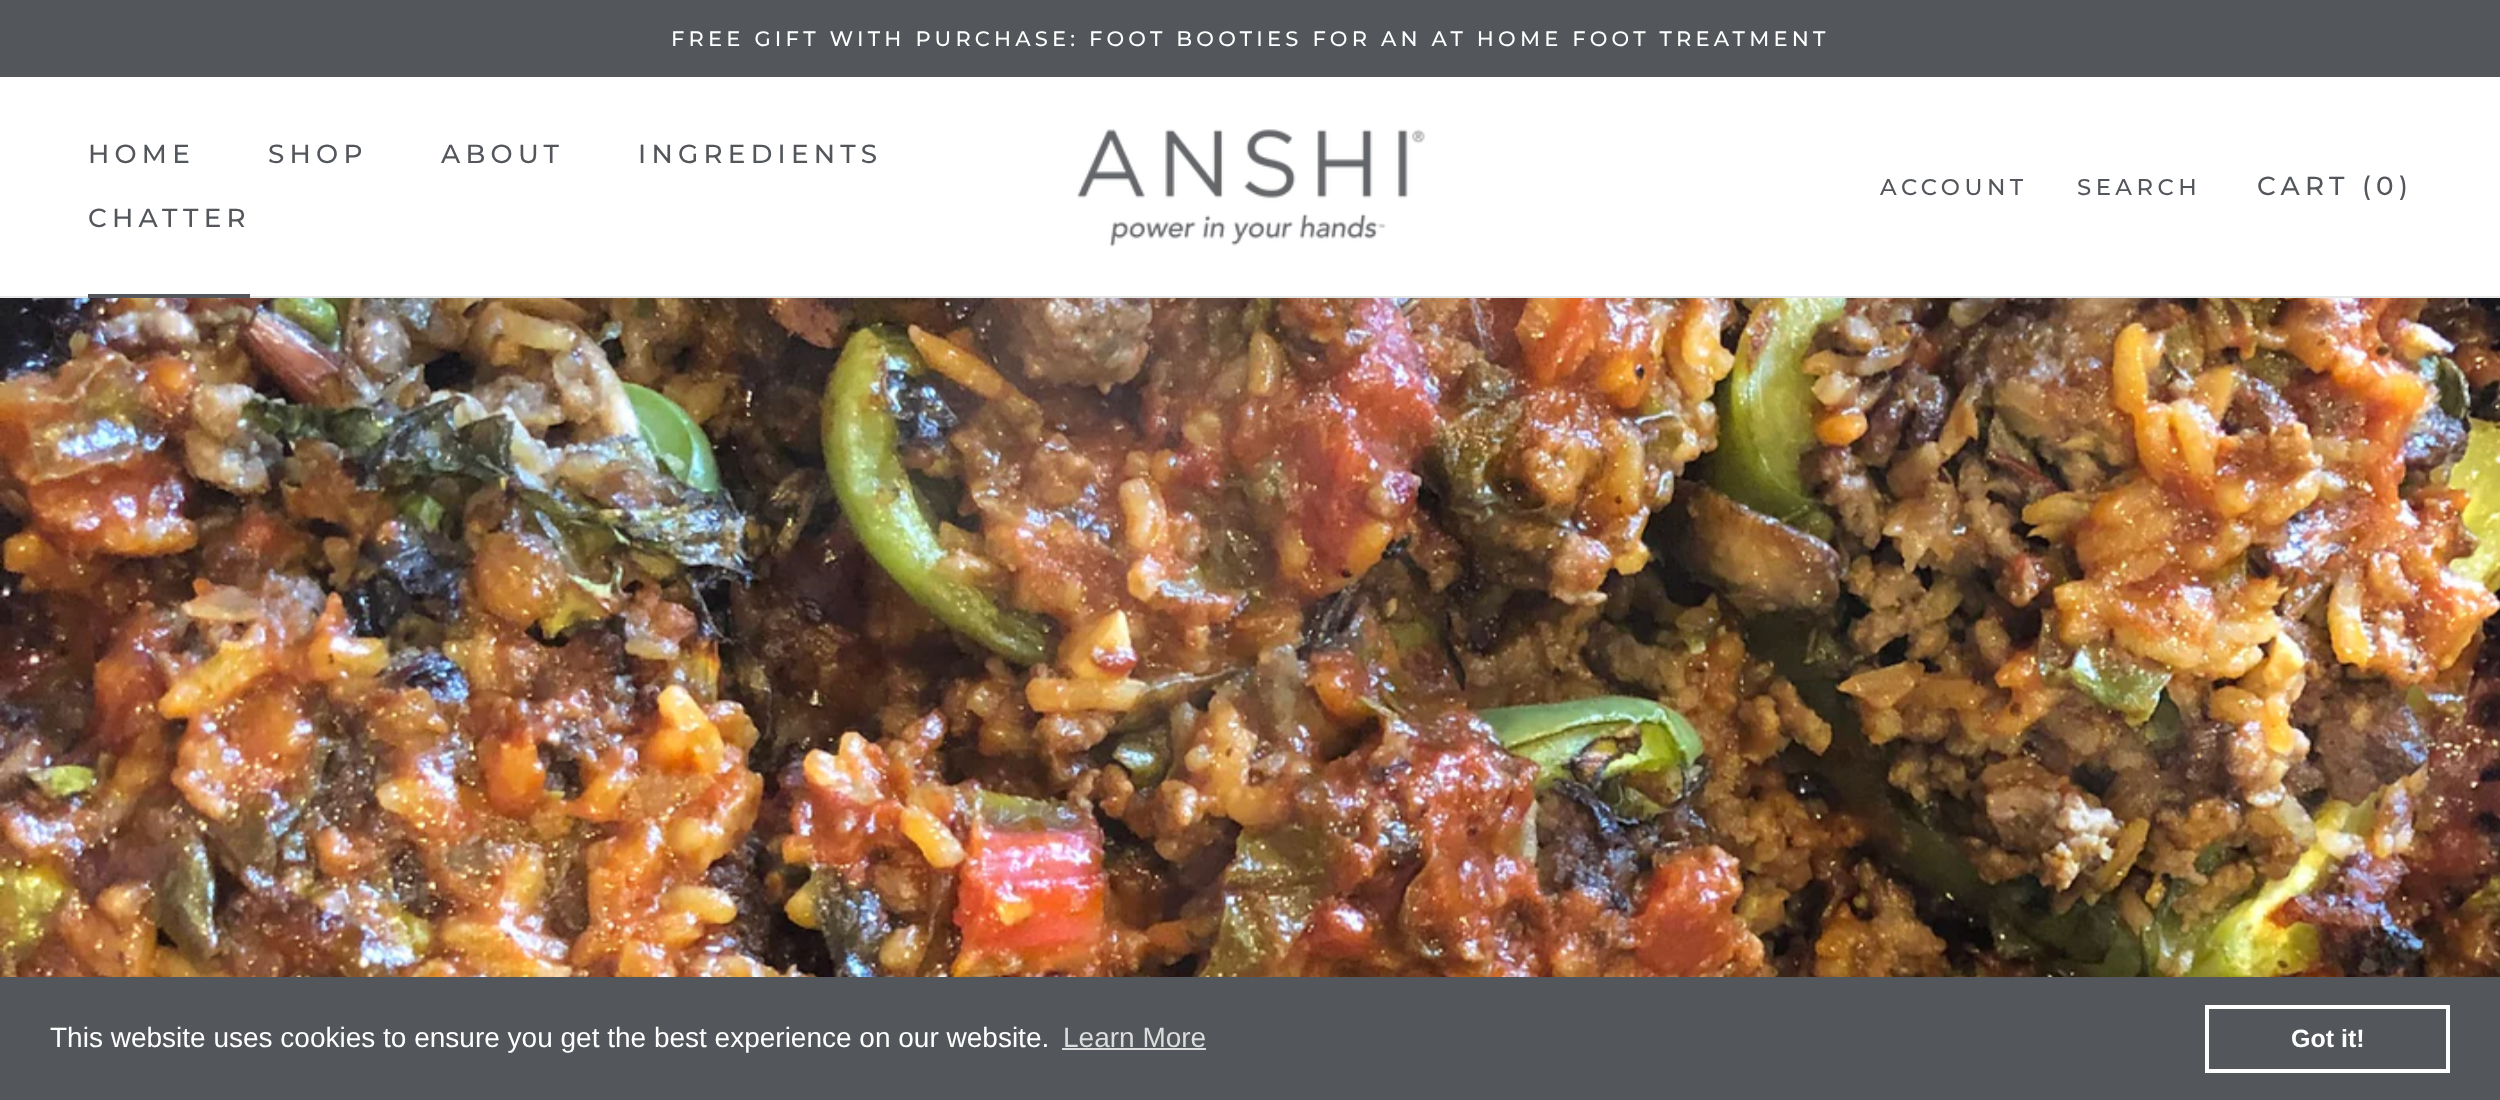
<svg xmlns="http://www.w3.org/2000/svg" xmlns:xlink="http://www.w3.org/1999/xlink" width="2500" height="1100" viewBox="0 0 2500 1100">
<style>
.cls-1{font:500 21px Montserrat;letter-spacing:4.2px;fill:#ffffff}
.cls-2{font:500 26.25px Montserrat;letter-spacing:5.25px;fill:#53565a}
.cls-3{font:500 22.75px Montserrat;letter-spacing:4.5px;fill:#53565a}
.cls-4{font:28px Liberation Sans;fill:#ffffff}
.cls-5{font:28px Liberation Sans;fill:#ddddde}
.cls-6{font:bold 25px Liberation Sans;fill:#ffffff}
</style>
<rect width="100%" height="100%" fill="#53565a"/>
<rect fill="#ffffff" x="0" y="77" width="2500" height="219"/>
<rect fill="#e5e6e6" x="0" y="296" width="2500" height="2"/>
<rect fill="#53565a" x="88" y="294" width="162" height="4"/>
<image xlink:href="image0.png" x="1077" y="129" width="348" height="118"/>
<image xlink:href="image1.png" x="0" y="298" width="2500" height="679"/>
<rect fill="#ddddde" x="1062" y="1048" width="144" height="2"/>
<rect fill="none" stroke="#ffffff" stroke-width="4" x="2207" y="1007" width="241" height="64"/>
<text class="cls-1" x="671" y="46">FREE GIFT WITH PURCHASE: FOOT BOOTIES FOR AN AT HOME FOOT TREATMENT</text>
<text class="cls-2" x="88" y="163">HOME</text>
<text class="cls-2" x="268" y="163">SHOP</text>
<text class="cls-2" x="441" y="163">ABOUT</text>
<text class="cls-2" x="638" y="163">INGREDIENTS</text>
<text class="cls-2" x="88" y="227">CHATTER</text>
<text class="cls-3" x="1880" y="195">ACCOUNT</text>
<text class="cls-3" x="2077" y="195">SEARCH</text>
<text class="cls-2" x="2257" y="195">CART (0)</text>
<text class="cls-4" x="50" y="1047">This website uses cookies to ensure you get the best experience on our website.</text>
<text class="cls-5" x="1063" y="1047">Learn More</text>
<text class="cls-6" x="2291" y="1047">Got it!</text>
</svg>
